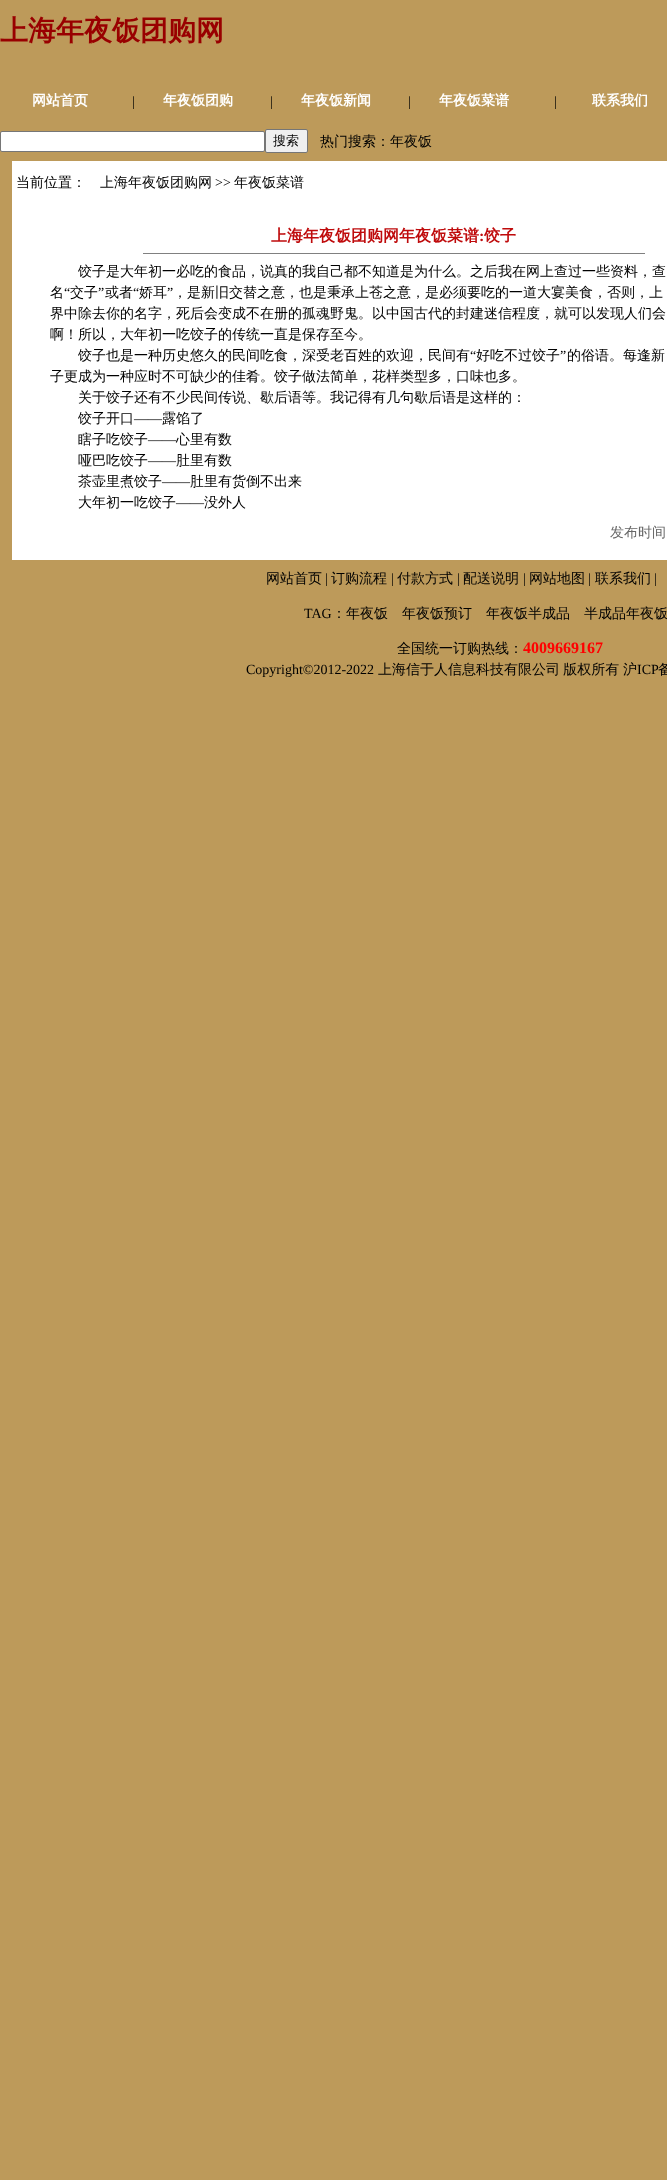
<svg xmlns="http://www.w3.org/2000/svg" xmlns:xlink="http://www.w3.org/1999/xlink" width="667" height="2180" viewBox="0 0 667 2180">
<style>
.cls-1{font:bold 28px WenQuanYi Zen Hei;fill:#990000}
.cls-2{font:bold 14px WenQuanYi Zen Hei;fill:#ffffff}
.cls-3{font:14px Liberation Serif;fill:#000000}
.cls-4{font:500 13px WenQuanYi Zen Hei;fill:#000000}
.cls-5{font:500 14px WenQuanYi Zen Hei;fill:#000000}
.cls-6{font:bold 16px WenQuanYi Zen Hei;fill:#bf0b0c}
.cls-7{font:bold 16px Liberation Serif;fill:#bf0b0c}
.cls-8{font:500 14px WenQuanYi Zen Hei;fill:#666666}
.cls-9{font:bold 16px Liberation Serif;fill:#ff0000}
</style>
<rect width="100%" height="100%" fill="#bd9a5a"/>
<rect fill="#ffffff" stroke="#767676" x="0.5" y="131.5" width="264" height="20" rx="1.5"/>
<rect fill="#efefef" stroke="#767676" x="265.5" y="129.5" width="42" height="23" rx="1.5"/>
<rect fill="#ffffff" x="12" y="161" width="655" height="399"/>
<rect fill="#808080" x="143" y="253" width="502" height="1"/>
<text class="cls-1" x="0" y="40">上海年夜饭团购网</text>
<text class="cls-2" x="32" y="105">网站首页</text>
<text class="cls-3" x="132" y="106">|</text>
<text class="cls-2" x="163" y="105">年夜饭团购</text>
<text class="cls-3" x="270" y="106">|</text>
<text class="cls-2" x="301" y="105">年夜饭新闻</text>
<text class="cls-3" x="408" y="106">|</text>
<text class="cls-2" x="439" y="105">年夜饭菜谱</text>
<text class="cls-3" x="554" y="106">|</text>
<text class="cls-2" x="592" y="105">联系我们</text>
<text class="cls-4" x="273" y="145">搜索</text>
<text class="cls-5" x="320" y="146">热门搜索：年夜饭</text>
<text class="cls-5" x="16" y="187">当前位置：</text>
<text class="cls-5" x="100" y="187">上海年夜饭团购网</text>
<text class="cls-3" x="215" y="187">&gt;&gt;</text>
<text class="cls-5" x="234" y="187">年夜饭菜谱</text>
<text class="cls-6" x="271" y="241">上海年夜饭团购网年夜饭菜谱</text>
<text class="cls-7" x="479" y="241">:</text>
<text class="cls-6" x="484" y="241">饺子</text>
<text class="cls-5" x="78" y="276">饺子是大年初一必吃的食品，说真的我自己都不知道是为什么。之后我在网上查过一些资料，查</text>
<text class="cls-5" x="50" y="297">名</text>
<text class="cls-3" x="64" y="297">“</text>
<text class="cls-5" x="70" y="297">交子</text>
<text class="cls-3" x="98" y="297">”</text>
<text class="cls-5" x="105" y="297">或者</text>
<text class="cls-3" x="133" y="297">“</text>
<text class="cls-5" x="139" y="297">娇耳</text>
<text class="cls-3" x="167" y="297">”</text>
<text class="cls-5" x="173" y="297">，是新旧交替之意，也是秉承上苍之意，是必须要吃的一道大宴美食，否则，上</text>
<text class="cls-5"><tspan x="50" y="318">界中除去你的名字，死后会变成不在册的孤魂野鬼。以中国古代的封建迷信程度，就可以发现人们会</tspan><tspan x="50" y="339">啊！所以，大年初一吃饺子的传统一直是保存至今。</tspan></text>
<text class="cls-5" x="78" y="360">饺子也是一种历史悠久的民间吃食，深受老百姓的欢迎，民间有</text>
<text class="cls-3" x="470" y="360">“</text>
<text class="cls-5" x="476" y="360">好吃不过饺子</text>
<text class="cls-3" x="560" y="360">”</text>
<text class="cls-5" x="567" y="360">的俗语。每逢新</text>
<text class="cls-5" x="50" y="381">子更成为一种应时不可缺少的佳肴。饺子做法简单，花样类型多，口味也多。</text>
<text class="cls-5"><tspan x="78" y="402">关于饺子还有不少民间传说、歇后语等。我记得有几句歇后语是这样的：</tspan><tspan x="78" y="423">饺子开口</tspan></text>
<text class="cls-3" x="134" y="423">——</text>
<text class="cls-5" x="162" y="423">露馅了</text>
<text class="cls-5" x="78" y="444">瞎子吃饺子</text>
<text class="cls-3" x="148" y="444">——</text>
<text class="cls-5" x="176" y="444">心里有数</text>
<text class="cls-5" x="78" y="465">哑巴吃饺子</text>
<text class="cls-3" x="148" y="465">——</text>
<text class="cls-5" x="176" y="465">肚里有数</text>
<text class="cls-5" x="78" y="486">茶壶里煮饺子</text>
<text class="cls-3" x="162" y="486">——</text>
<text class="cls-5" x="190" y="486">肚里有货倒不出来</text>
<text class="cls-5" x="78" y="507">大年初一吃饺子</text>
<text class="cls-3" x="176" y="507">——</text>
<text class="cls-5" x="204" y="507">没外人</text>
<text class="cls-8" x="610" y="537">发布时间</text>
<text class="cls-5" x="266" y="583">网站首页</text>
<text class="cls-3" x="325" y="583">|</text>
<text class="cls-5" x="331" y="583">订购流程</text>
<text class="cls-3" x="391" y="583">|</text>
<text class="cls-5" x="397" y="583">付款方式</text>
<text class="cls-3" x="457" y="583">|</text>
<text class="cls-5" x="463" y="583">配送说明</text>
<text class="cls-3" x="523" y="583">|</text>
<text class="cls-5" x="529" y="583">网站地图</text>
<text class="cls-3" x="588" y="583">|</text>
<text class="cls-5" x="595" y="583">联系我们</text>
<text class="cls-3" x="654" y="583">|</text>
<text class="cls-3" x="304" y="618">TAG</text>
<text class="cls-5" x="332" y="618">：年夜饭</text>
<text class="cls-5" x="402" y="618">年夜饭预订</text>
<text class="cls-5" x="486" y="618">年夜饭半成品</text>
<text class="cls-5" x="584" y="618">半成品年夜饭</text>
<text class="cls-5" x="397" y="653">全国统一订购热线：</text>
<text class="cls-9" x="523" y="653">4009669167</text>
<text class="cls-3" x="246" y="674">Copyright©2012-2022</text>
<text class="cls-5" x="378" y="674" word-spacing="-1">上海信于人信息科技有限公司 版权所有</text>
<text class="cls-5" x="623" y="674">沪</text>
<text class="cls-3" x="637" y="674">ICP</text>
<text class="cls-5" x="658" y="674">备</text>
</svg>
